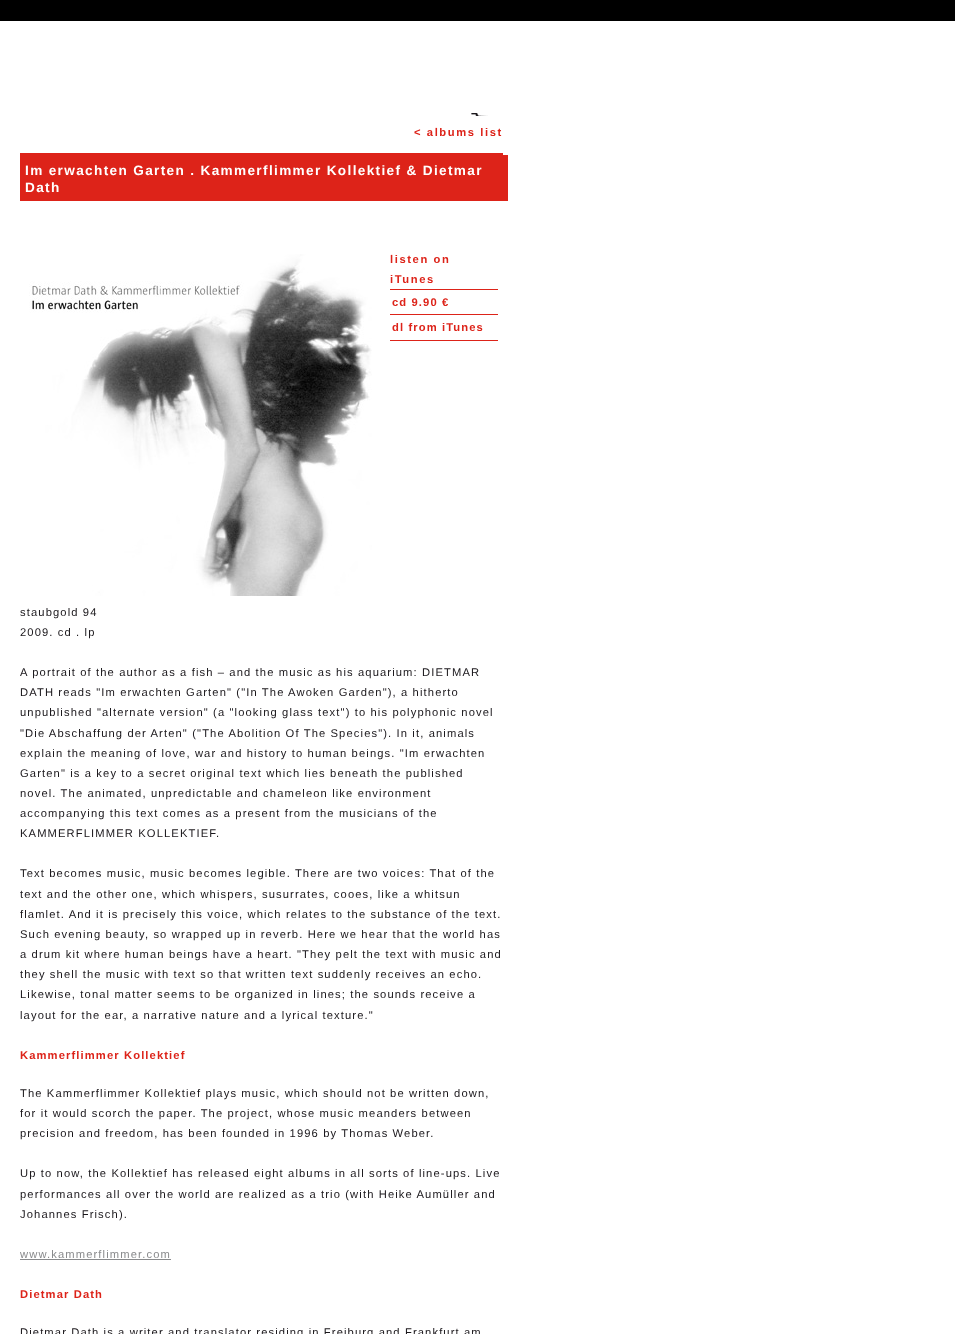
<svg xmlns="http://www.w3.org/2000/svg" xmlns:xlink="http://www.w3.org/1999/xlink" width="955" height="1334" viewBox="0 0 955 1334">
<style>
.cls-1{font:bold 11.2px Liberation Sans;letter-spacing:1.6px;fill:#dd2319}
.cls-2{font:bold 13.6px Liberation Sans;letter-spacing:1.35px;fill:#ffffff}
.cls-3{font:bold 11.2px Liberation Sans;letter-spacing:1.12px;fill:#dd2319}
.cls-4{font:11.2px Liberation Sans;letter-spacing:1.12px;fill:#1a171b}
.cls-5{font:11.2px Liberation Sans;letter-spacing:1.12px;fill:#898a8c}
</style>
<rect width="100%" height="100%" fill="#ffffff"/>
<rect fill="#000000" x="0" y="0" width="955" height="21"/>
<image xlink:href="image0.png" x="471" y="113" width="17" height="3"/>
<rect fill="#dd2319" x="20" y="153" width="483" height="2"/>
<rect fill="#dd2319" x="20" y="155" width="488" height="46"/>
<image xlink:href="image1.png" x="29" y="254" width="343" height="342"/>
<rect fill="#dd2319" x="390" y="289" width="108" height="1"/>
<rect fill="#dd2319" x="390" y="314" width="108" height="1"/>
<rect fill="#dd2319" x="390" y="340" width="108" height="1"/>
<rect fill="#898a8c" x="20" y="1259" width="151" height="1"/>
<text class="cls-1" x="414" y="136">&lt; albums list</text>
<text class="cls-2"><tspan x="25" y="175">Im erwachten Garten . Kammerflimmer Kollektief &amp; Dietmar</tspan><tspan x="25" y="192">Dath</tspan></text>
<text class="cls-1"><tspan x="390" y="263">listen on</tspan><tspan x="390" y="283">iTunes</tspan></text>
<text class="cls-3" x="392" y="306">cd 9.90 €</text>
<text class="cls-3" x="392" y="331">dl from iTunes</text>
<text class="cls-4"><tspan x="20" y="616">staubgold 94</tspan><tspan x="20" y="636">2009. cd . lp</tspan></text>
<text class="cls-4"><tspan x="20" y="676">A portrait of the author as a fish – and the music as his aquarium: DIETMAR</tspan><tspan x="20" y="696">DATH reads "Im erwachten Garten" ("In The Awoken Garden"), a hitherto</tspan><tspan x="20" y="716">unpublished "alternate version" (a "looking glass text") to his polyphonic novel</tspan><tspan x="20" y="737">"Die Abschaffung der Arten" ("The Abolition Of The Species"). In it, animals</tspan><tspan x="20" y="757">explain the meaning of love, war and history to human beings. "Im erwachten</tspan><tspan x="20" y="777">Garten" is a key to a secret original text which lies beneath the published</tspan><tspan x="20" y="797">novel. The animated, unpredictable and chameleon like environment</tspan><tspan x="20" y="817">accompanying this text comes as a present from the musicians of the</tspan><tspan x="20" y="837">KAMMERFLIMMER KOLLEKTIEF.</tspan></text>
<text class="cls-4"><tspan x="20" y="877">Text becomes music, music becomes legible. There are two voices: That of the</tspan><tspan x="20" y="898">text and the other one, which whispers, susurrates, cooes, like a whitsun</tspan><tspan x="20" y="918">flamlet. And it is precisely this voice, which relates to the substance of the text.</tspan><tspan x="20" y="938">Such evening beauty, so wrapped up in reverb. Here we hear that the world has</tspan><tspan x="20" y="958">a drum kit where human beings have a heart. "They pelt the text with music and</tspan><tspan x="20" y="978">they shell the music with text so that written text suddenly receives an echo.</tspan><tspan x="20" y="998">Likewise, tonal matter seems to be organized in lines; the sounds receive a</tspan><tspan x="20" y="1019">layout for the ear, a narrative nature and a lyrical texture."</tspan></text>
<text class="cls-3" x="20" y="1059">Kammerflimmer Kollektief</text>
<text class="cls-4"><tspan x="20" y="1097">The Kammerflimmer Kollektief plays music, which should not be written down,</tspan><tspan x="20" y="1117">for it would scorch the paper. The project, whose music meanders between</tspan><tspan x="20" y="1137">precision and freedom, has been founded in 1996 by Thomas Weber.</tspan></text>
<text class="cls-4"><tspan x="20" y="1177">Up to now, the Kollektief has released eight albums in all sorts of line-ups. Live</tspan><tspan x="20" y="1198">performances all over the world are realized as a trio (with Heike Aumüller and</tspan><tspan x="20" y="1218">Johannes Frisch).</tspan></text>
<text class="cls-5" x="20" y="1258">www.kammerflimmer.com</text>
<text class="cls-3" x="20" y="1298">Dietmar Dath</text>
<text class="cls-4" x="20" y="1336">Dietmar Dath is a writer and translator residing in Freiburg and Frankfurt am</text>
</svg>
